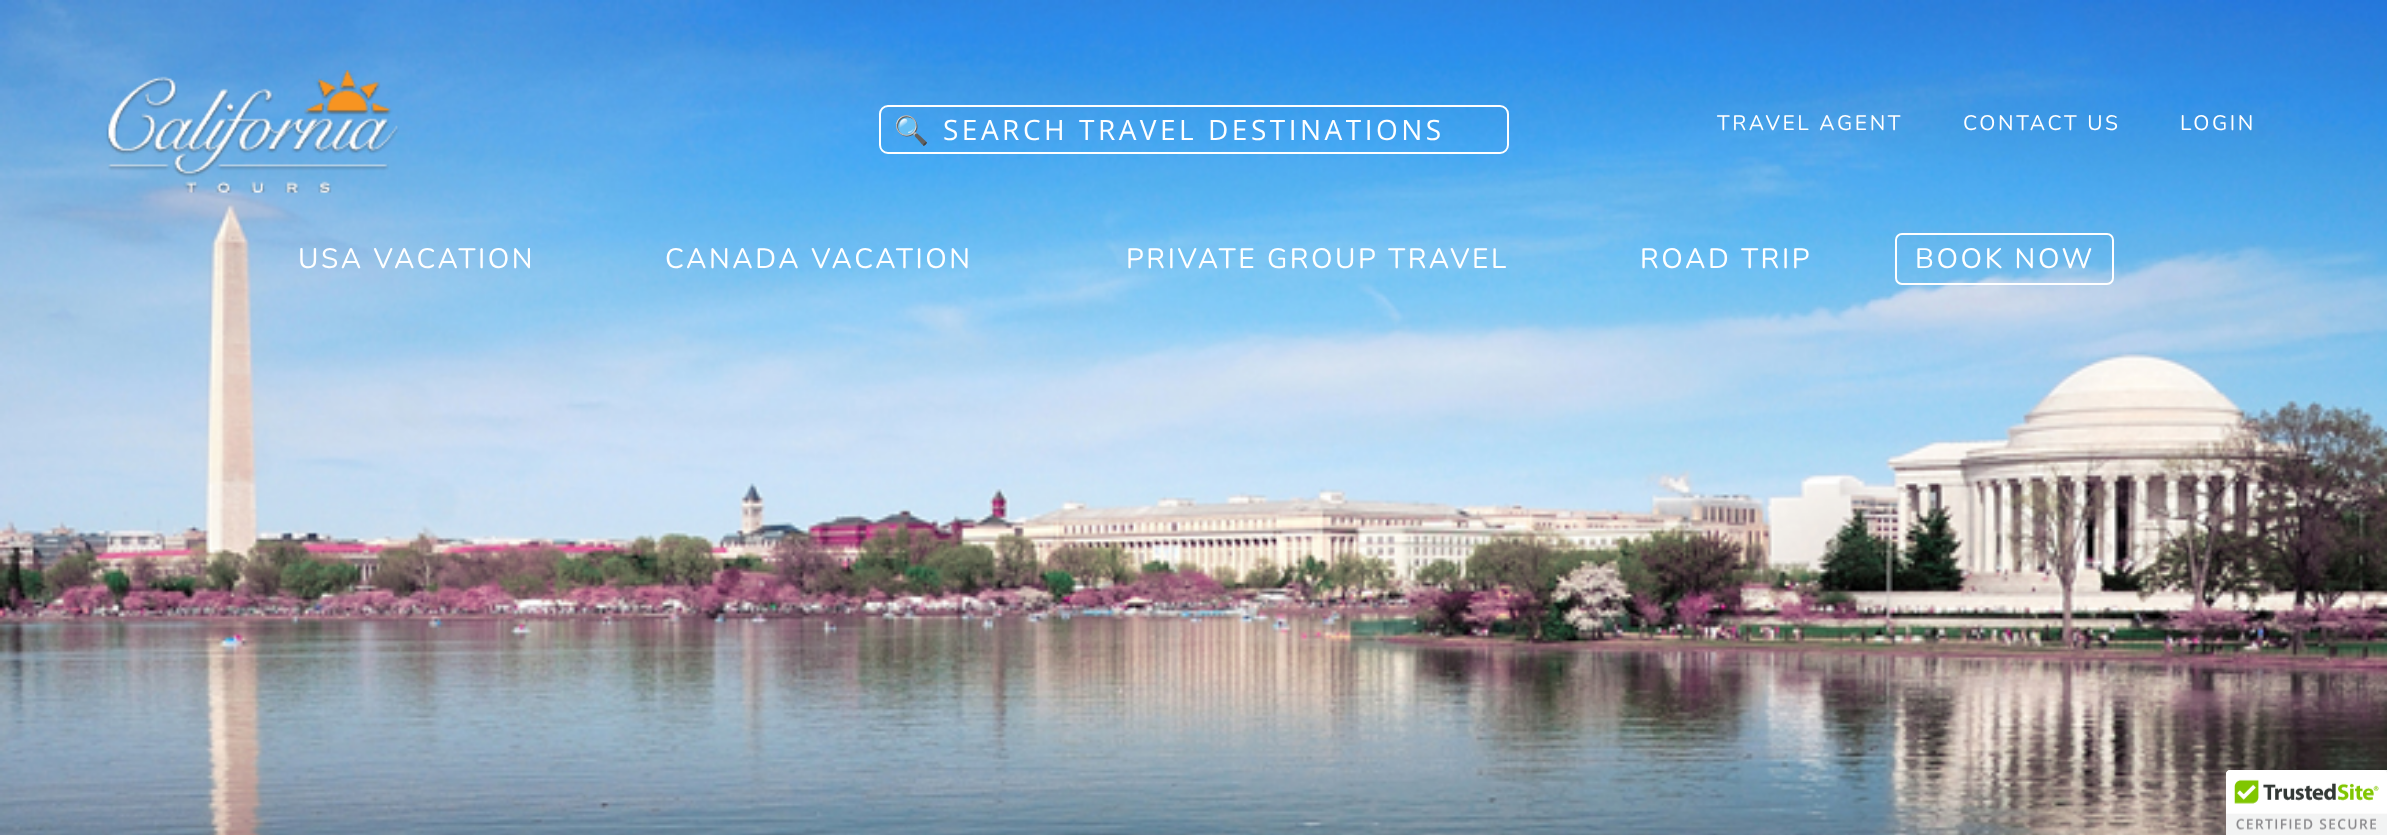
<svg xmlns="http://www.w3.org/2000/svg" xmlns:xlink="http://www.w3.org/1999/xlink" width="2387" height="835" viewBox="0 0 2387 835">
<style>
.cls-1{font:28px Noto Color Emoji;letter-spacing:3.5px;fill:#ffffff}
.cls-2{font:28px Open Sans;letter-spacing:3.5px;fill:#ffffff}
.cls-3{font:21px Nunito;letter-spacing:2.6px;fill:#ffffff}
.cls-4{font:28px Nunito;letter-spacing:2.6px;fill:#ffffff}
</style>
<rect width="100%" height="100%" fill="#ffffff"/>
<image xlink:href="image0.png" x="0" y="0" width="2387" height="835"/>
<image xlink:href="image1.png" x="106" y="70" width="293" height="123"/>
<rect fill="none" stroke="#ffffff" stroke-width="2" x="880" y="106" width="628" height="47" rx="8"/>
<rect fill="none" stroke="#ffffff" stroke-width="2" x="1896" y="234" width="217" height="50" rx="6"/>
<rect fill="#000000" fill-opacity="0.2" filter="blur(4.5px)" x="2226" y="770" width="161" height="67" rx="4"/>
<path fill="#ffffff" d="M2230 770H2387V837H2226V774C2226 772 2228 770 2230 770Z"/>
<image xlink:href="image2.png" x="2226" y="770" width="161" height="65"/>
<text class="cls-1" x="894" y="140">🔍</text>
<text class="cls-2" x="943" y="140">SEARCH TRAVEL DESTINATIONS</text>
<text class="cls-3" x="1717" y="130">TRAVEL AGENT</text>
<text class="cls-3" x="1963" y="130">CONTACT US</text>
<text class="cls-3" x="2180" y="130">LOGIN</text>
<text class="cls-4" x="298" y="268">USA VACATION</text>
<text class="cls-4" x="665" y="268">CANADA VACATION</text>
<text class="cls-4" x="1126" y="268">PRIVATE GROUP TRAVEL</text>
<text class="cls-4" x="1640" y="268">ROAD TRIP</text>
<text class="cls-4" x="1915" y="268">BOOK NOW</text>
</svg>
